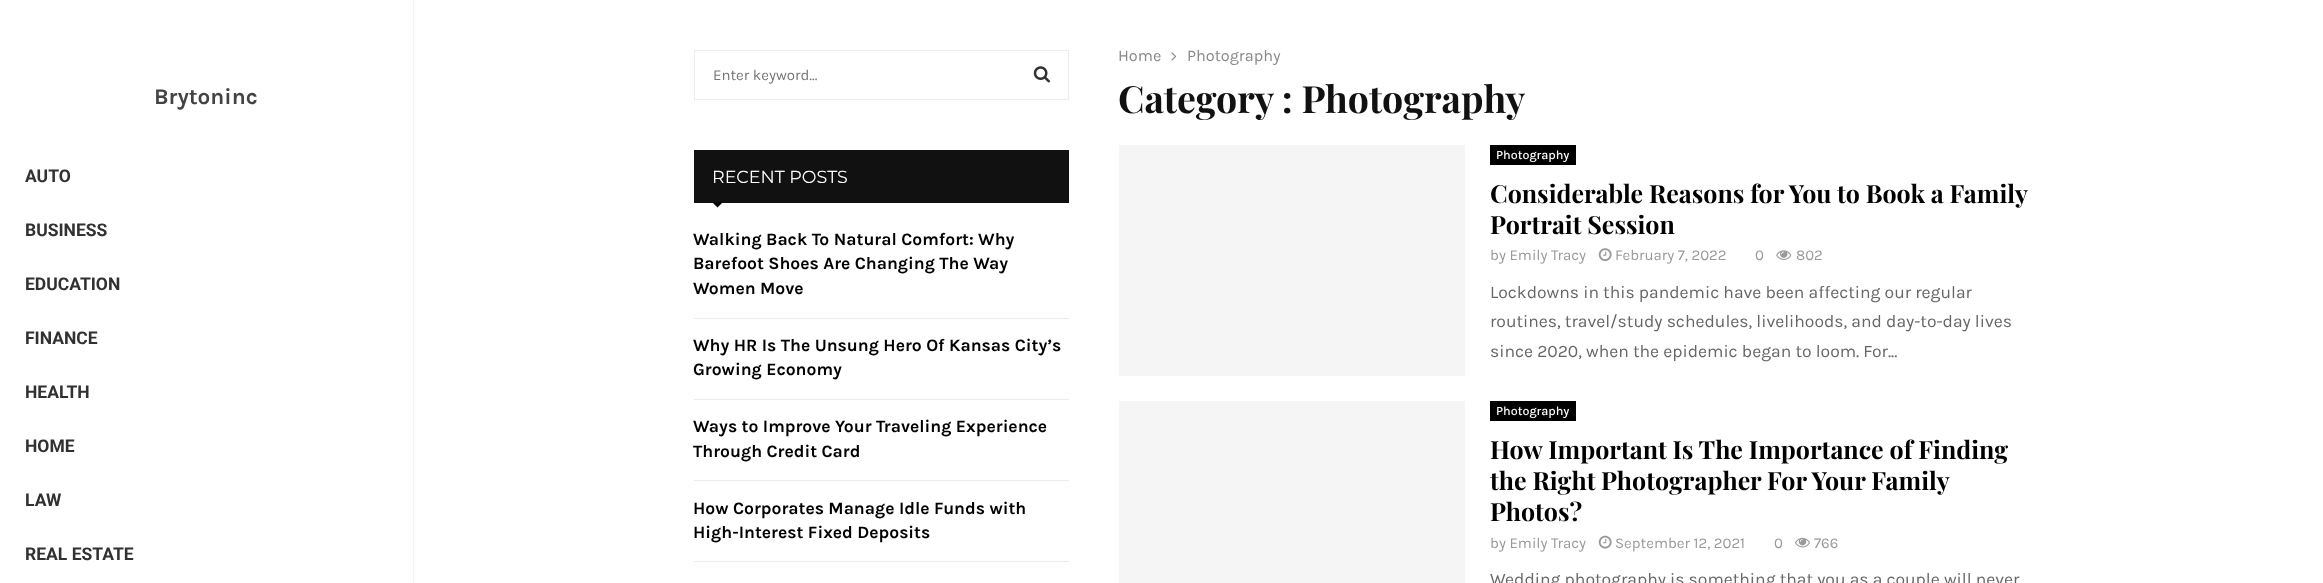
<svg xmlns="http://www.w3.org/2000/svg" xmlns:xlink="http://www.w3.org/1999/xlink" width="2323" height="583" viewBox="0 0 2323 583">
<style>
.cls-1{font:bold 22.5px Karla;fill:#434343}
.cls-2{font:bold 17.5px Roboto;fill:#313131}
.cls-3{font:15px Karla;fill:#757575}
.cls-4{font:17.5px Montserrat;fill:#ffffff}
.cls-5{font:bold 17.5px Karla;fill:#000000}
.cls-6{font:16.25px Karla;fill:#888888}
.cls-7{font:bold 37.5px Playfair Display;fill:#111111}
.cls-8{font:500 12.5px Karla;fill:#ffffff}
.cls-9{font:bold 25px Playfair Display;fill:#000000}
.cls-10{font:15px Karla;fill:#999999}
.cls-11{font:17.5px Karla;fill:#666666}
</style>
<rect width="100%" height="100%" fill="#ffffff"/>
<rect fill="#000000" fill-opacity="0.15" filter="blur(1px)" x="0" y="0" width="413" height="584"/>
<rect fill="#ffffff" x="0" y="0" width="413" height="583"/>
<rect fill="none" stroke="#ececec" x="694.5" y="50.5" width="374" height="49"/>
<image xlink:href="image0.png" x="1033" y="66" width="17" height="17"/>
<rect fill="#111111" x="694" y="150" width="375" height="53"/>
<path fill="#000000" d="M712.5 202.5H722.5L717.5 207.5Z"/>
<rect fill="#ececec" x="694" y="318" width="375" height="1"/>
<rect fill="#ececec" x="694" y="399" width="375" height="1"/>
<rect fill="#ececec" x="694" y="480" width="375" height="1"/>
<rect fill="#ececec" x="694" y="561" width="375" height="1"/>
<image xlink:href="image1.png" x="1171" y="52" width="6" height="9"/>
<rect fill="#f5f5f5" x="1119" y="145" width="346" height="231"/>
<rect fill="#000000" x="1490" y="145" width="86" height="20"/>
<image xlink:href="image2.png" x="1598" y="248" width="14" height="13"/>
<image xlink:href="image3.png" x="1776" y="250" width="16" height="10"/>
<rect fill="#f5f5f5" x="1119" y="401" width="346" height="182"/>
<rect fill="#000000" x="1490" y="401" width="86" height="20"/>
<image xlink:href="image4.png" x="1598" y="535" width="14" height="14"/>
<image xlink:href="image5.png" x="1795" y="537" width="15" height="11"/>
<text class="cls-1" x="154" y="104">Brytoninc</text>
<text class="cls-2" x="25" y="182">AUTO</text>
<text class="cls-2" x="25" y="236">BUSINESS</text>
<text class="cls-2" x="25" y="290">EDUCATION</text>
<text class="cls-2" x="25" y="344">FINANCE</text>
<text class="cls-2" x="25" y="398">HEALTH</text>
<text class="cls-2" x="25" y="452">HOME</text>
<text class="cls-2" x="25" y="506">LAW</text>
<text class="cls-2" x="25" y="560">REAL ESTATE</text>
<text class="cls-3" x="713" y="80">Enter keyword...</text>
<text class="cls-4" x="712" y="183">RECENT POSTS</text>
<text class="cls-5"><tspan x="693" y="245">Walking Back To Natural Comfort: Why</tspan><tspan x="693" y="269">Barefoot Shoes Are Changing The Way</tspan><tspan x="693" y="294">Women Move</tspan></text>
<text class="cls-5"><tspan x="693" y="351">Why HR Is The Unsung Hero Of Kansas City’s</tspan><tspan x="693" y="375">Growing Economy</tspan></text>
<text class="cls-5"><tspan x="693" y="432">Ways to Improve Your Traveling Experience</tspan><tspan x="693" y="457">Through Credit Card</tspan></text>
<text class="cls-5"><tspan x="693" y="514">How Corporates Manage Idle Funds with</tspan><tspan x="693" y="538">High-Interest Fixed Deposits</tspan></text>
<text class="cls-6" x="1118" y="61">Home</text>
<text class="cls-6" x="1187" y="61">Photography</text>
<text class="cls-7" x="1118" y="113">Category : Photography</text>
<text class="cls-8" x="1496" y="159">Photography</text>
<text class="cls-9"><tspan x="1490" y="203">Considerable Reasons for You to Book a Family</tspan><tspan x="1490" y="234">Portrait Session</tspan></text>
<text class="cls-10" x="1490" y="260">by Emily Tracy</text>
<text class="cls-10" x="1615" y="260">February 7, 2022</text>
<text class="cls-10" x="1755" y="260">0</text>
<text class="cls-10" x="1796" y="260">802</text>
<text class="cls-11"><tspan x="1490" y="298">Lockdowns in this pandemic have been affecting our regular</tspan><tspan x="1490" y="327">routines, travel/study schedules, livelihoods, and day-to-day lives</tspan><tspan x="1490" y="357">since 2020, when the epidemic began to loom. For...</tspan></text>
<text class="cls-8" x="1496" y="415">Photography</text>
<text class="cls-9"><tspan x="1490" y="459">How Important Is The Importance of Finding</tspan><tspan x="1490" y="490">the Right Photographer For Your Family</tspan><tspan x="1490" y="521">Photos?</tspan></text>
<text class="cls-10" x="1490" y="548">by Emily Tracy</text>
<text class="cls-10" x="1615" y="548">September 12, 2021</text>
<text class="cls-10" x="1774" y="548">0</text>
<text class="cls-10" x="1814" y="548">766</text>
<text class="cls-11" x="1490" y="585">Wedding photography is something that you as a couple will never</text>
</svg>
